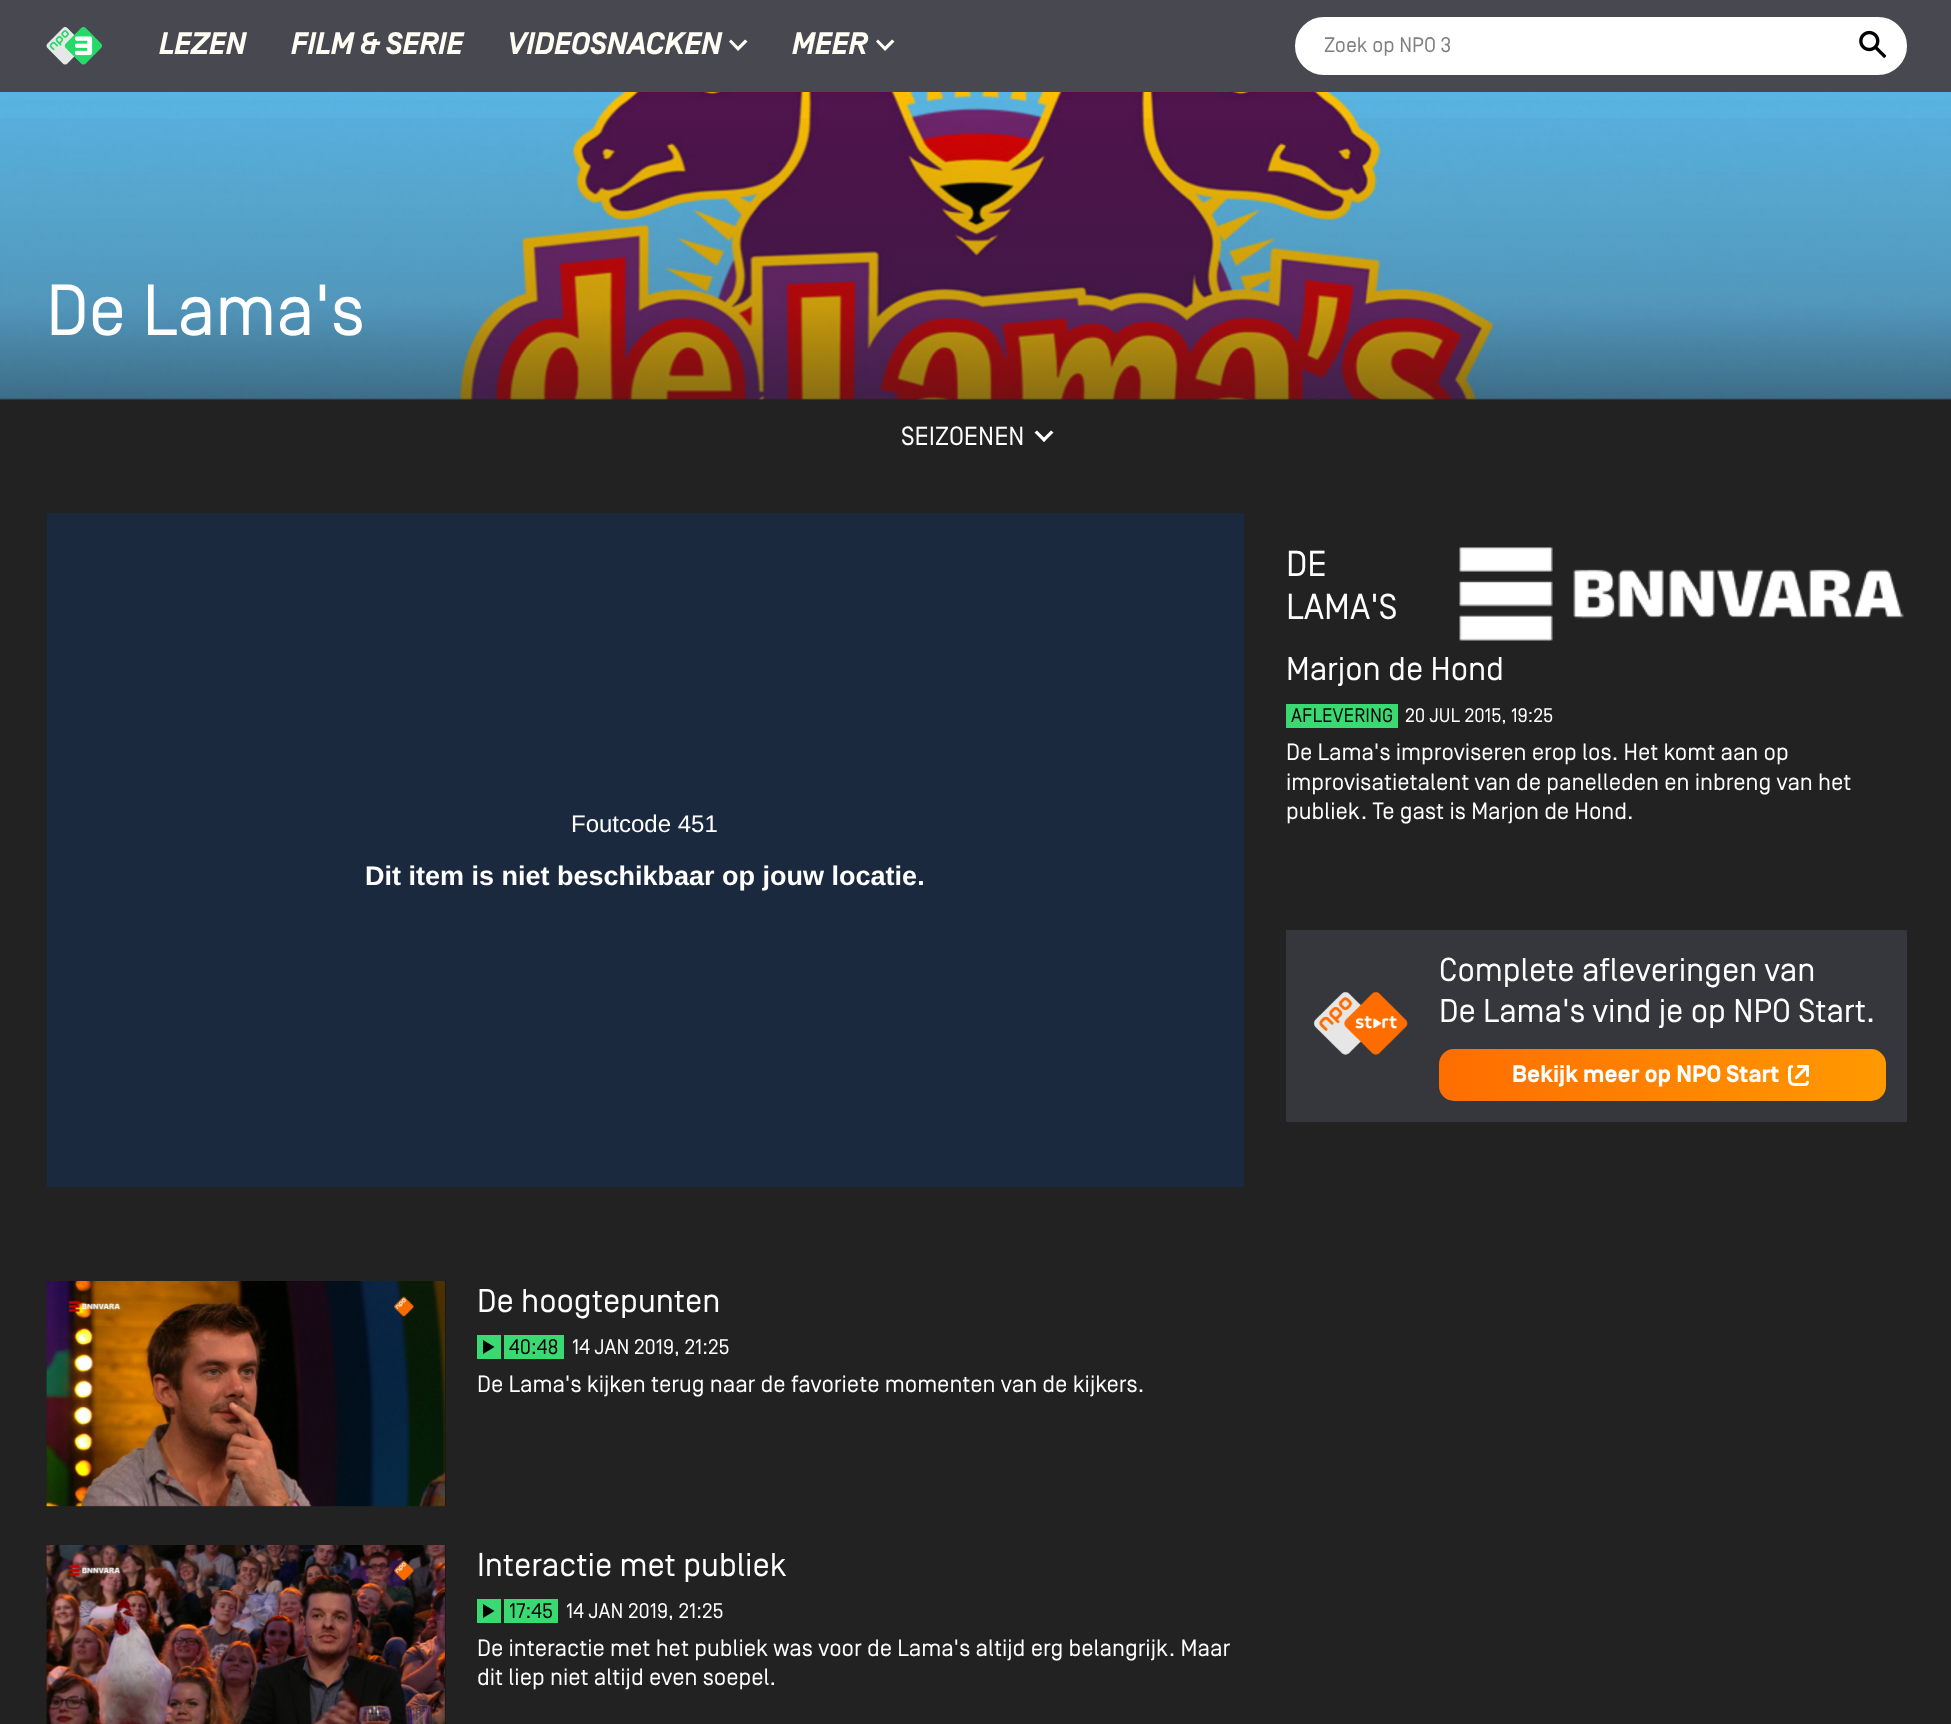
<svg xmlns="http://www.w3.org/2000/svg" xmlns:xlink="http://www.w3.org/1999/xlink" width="1951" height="1724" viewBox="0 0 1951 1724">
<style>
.cls-1{font:italic bold 31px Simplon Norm;fill:#fffdf4}
.cls-2{font:21px Simplon Norm;fill:#808080}
.cls-3{font:72px Simplon Norm;fill:#ffffff}
.cls-4{font:26.25px Simplon Norm;fill:#ffffff}
.cls-5{font:24px Liberation Sans;fill:#ffffff}
.cls-6{font:bold 27px Liberation Sans;fill:#ffffff}
.cls-7{font:33px Simplon Norm;fill:#ffffff}
.cls-8{font:21px Simplon Norm;fill:#000000}
.cls-9{font:21px Simplon Norm;fill:#ffffff}
.cls-10{font:23.6px Simplon Norm;fill:#ffffff}
.cls-11{font:36px Simplon Norm;fill:#ffffff}
.cls-12{font:19.5px Simplon Norm;fill:#000000}
.cls-13{font:19.5px Simplon Norm;fill:#ffffff}
.cls-14{font:bold 24px Simplon Norm;fill:#ffffff}
</style>
<defs>
<linearGradient id="g1" gradientUnits="userSpaceOnUse" x1="976" y1="87" x2="976" y2="399"><stop offset="0" stop-color="#000000" stop-opacity="0"/><stop offset="0.7" stop-color="#000000" stop-opacity="0.15"/><stop offset="1" stop-color="#000000" stop-opacity="0.4"/></linearGradient>
<linearGradient id="g2" gradientUnits="userSpaceOnUse" x1="976" y1="-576" x2="976" y2="399"><stop offset="0" stop-color="#335878" stop-opacity="0"/><stop offset="0.65" stop-color="#335878" stop-opacity="0.01"/><stop offset="0.8" stop-color="#335878" stop-opacity="0.05"/><stop offset="1" stop-color="#335878" stop-opacity="0.15"/></linearGradient>
<linearGradient id="g3" gradientUnits="userSpaceOnUse" x1="1439" y1="1075" x2="1886" y2="1075"><stop offset="0" stop-color="#ff6d00"/><stop offset="1" stop-color="#ff9900"/></linearGradient>
</defs>
<rect width="100%" height="100%" fill="#222222"/>
<rect fill="#484950" x="0" y="0" width="1951" height="92"/>
<image xlink:href="image0.png" x="46" y="27" width="56" height="38"/>
<path fill="#fffdf4" fill-rule="evenodd" d="M729 41.5L731 39.5L738 46.5L745 39.5L747.5 41.5L738 51Z"/>
<path fill="#fffdf4" fill-rule="evenodd" d="M876 41.5L878 39.5L885 46.5L892 39.5L894.5 41.5L885 51Z"/>
<rect fill="#ffffff" stroke="#ffffff" stroke-width="2" x="1296" y="18" width="610" height="56" rx="28"/>
<image xlink:href="image1.png" x="1859" y="30" width="28" height="28"/>
<image xlink:href="image2.png" x="0" y="92" width="1951" height="308"/>
<rect fill="url(#g1)" x="0" y="118" width="1951" height="281"/>
<rect fill="url(#g2)" x="0" y="100" width="1951" height="299"/>
<path fill="#ffffff" d="M1051 430.5L1053.5 432.5L1044 442L1042 439.5Z"/>
<path fill="#ffffff" d="M1037 430.5L1046 439.5L1044 442L1034.5 432.5Z"/>
<rect fill="#1b293f" x="47" y="513" width="1197" height="674"/>
<rect fill="#1a1a1a" x="47" y="1281" width="399" height="225"/>
<image xlink:href="image3.png" x="46" y="1281" width="399" height="226"/>
<rect fill="#3bd972" x="477" y="1335" width="24" height="24"/>
<path fill="#000000" fill-rule="evenodd" d="M494.5 1347L483 1354V1340Z"/>
<rect fill="#3bd972" x="504" y="1335" width="60" height="24"/>
<rect fill="#1a1a1a" x="445" y="1545" width="1" height="179"/>
<image xlink:href="image4.png" x="46" y="1545" width="399" height="179"/>
<rect fill="#3bd972" x="477" y="1599" width="24" height="24"/>
<path fill="#000000" fill-rule="evenodd" d="M494.5 1611L483 1618V1604Z"/>
<rect fill="#3bd972" x="504" y="1599" width="54" height="24"/>
<image xlink:href="image5.png" x="1459" y="547" width="445" height="94"/>
<rect fill="#3bd972" x="1286" y="704" width="112" height="24"/>
<rect fill="#36373c" x="1286" y="930" width="621" height="192"/>
<image xlink:href="image6.png" x="1313" y="992" width="95" height="63"/>
<rect fill="url(#g3)" x="1439" y="1049" width="447" height="52" rx="15"/>
<image xlink:href="image7.png" x="1788" y="1065" width="21" height="21"/>
<text class="cls-1" x="159" y="54">LEZEN</text>
<text class="cls-1" x="291" y="54">FILM &amp; SERIE</text>
<text class="cls-1" x="507" y="54">VIDEOSNACKEN</text>
<text class="cls-1" x="792" y="54">MEER</text>
<text class="cls-2" x="1324" y="52">Zoek op NPO 3</text>
<text class="cls-3" x="46" y="335">De Lama's</text>
<text class="cls-4" x="901" y="445">SEIZOENEN</text>
<text class="cls-5" x="571" y="832">Foutcode 451</text>
<text class="cls-6" x="365" y="885">Dit item is niet beschikbaar op jouw locatie.</text>
<text class="cls-7" x="477" y="1312">De hoogtepunten</text>
<text class="cls-8" x="509" y="1354">40:48</text>
<text class="cls-9" x="572" y="1354">14 JAN 2019, 21:25</text>
<text class="cls-10" x="477" y="1392">De Lama's kijken terug naar de favoriete momenten van de kijkers.</text>
<text class="cls-7" x="477" y="1576">Interactie met publiek</text>
<text class="cls-8" x="509" y="1618">17:45</text>
<text class="cls-9" x="566" y="1618">14 JAN 2019, 21:25</text>
<text class="cls-10"><tspan x="477" y="1656">De interactie met het publiek was voor de Lama's altijd erg belangrijk. Maar</tspan><tspan x="477" y="1685">dit liep niet altijd even soepel.</tspan></text>
<text class="cls-11"><tspan x="1286" y="576">DE</tspan><tspan x="1286" y="619">LAMA'S</tspan></text>
<text class="cls-7" x="1286" y="680">Marjon de Hond</text>
<text class="cls-12" x="1291" y="722">AFLEVERING</text>
<text class="cls-13" x="1405" y="722">20 JUL 2015, 19:25</text>
<text class="cls-10"><tspan x="1286" y="760">De Lama's improviseren erop los. Het komt aan op</tspan><tspan x="1286" y="790">improvisatietalent van de panelleden en inbreng van het</tspan><tspan x="1286" y="819">publiek. Te gast is Marjon de Hond.</tspan></text>
<text class="cls-7"><tspan x="1439" y="981">Complete afleveringen van</tspan><tspan x="1439" y="1022">De Lama's vind je op NPO Start.</tspan></text>
<text class="cls-14" x="1512" y="1082">Bekijk meer op NPO Start</text>
</svg>
